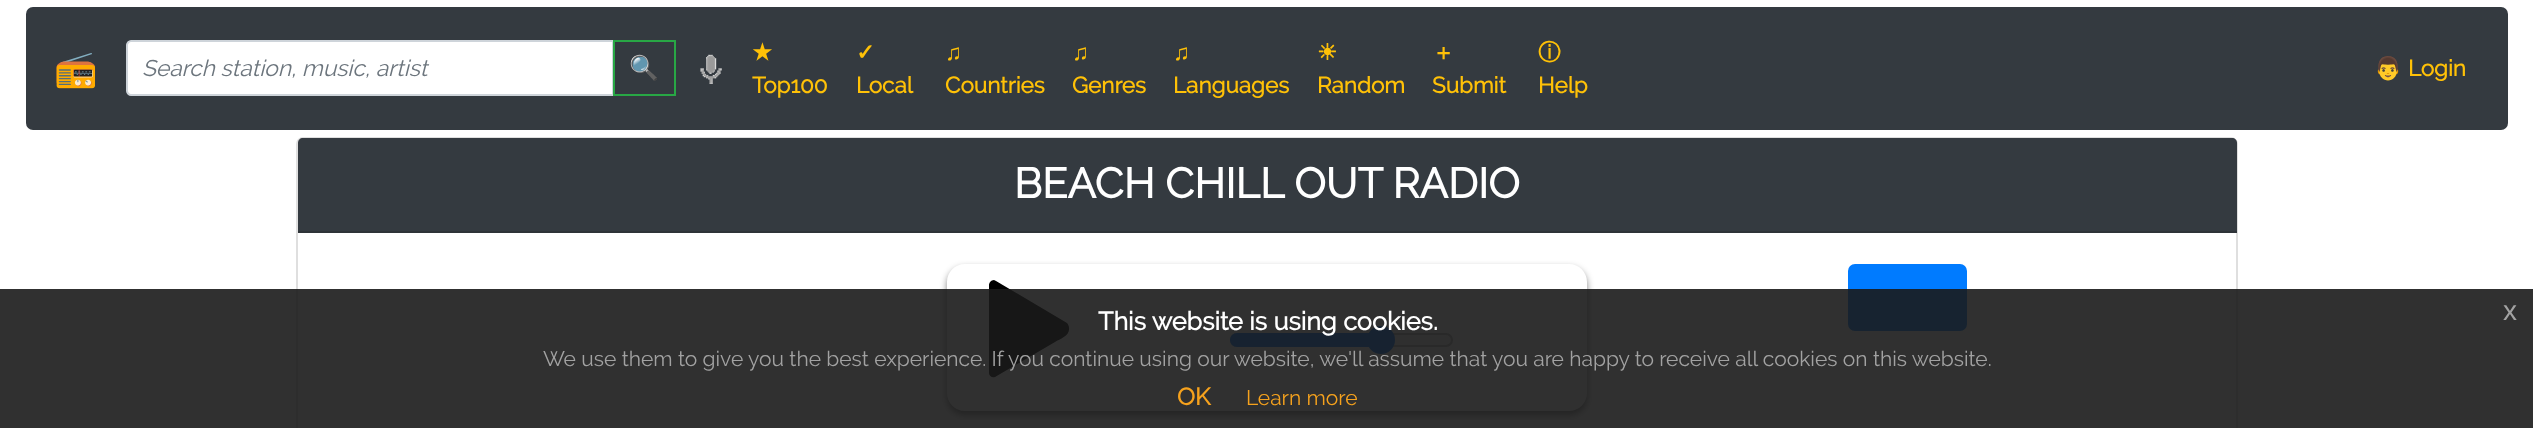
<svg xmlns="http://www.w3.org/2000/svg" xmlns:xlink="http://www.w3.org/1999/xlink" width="2533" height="428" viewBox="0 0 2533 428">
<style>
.cls-1{font:bold 35px Noto Color Emoji;fill:#ffffff}
.cls-2{font:italic 22.75px Raleway;fill:#6c757d}
.cls-3{font:24px Noto Color Emoji;fill:#28a745}
.cls-4{font:bold 22.5px DejaVu Sans;fill:#ffc107}
.cls-5{font:bold 22.5px Raleway;fill:#ffc107}
.cls-6{font:bold 22.5px Liberation Sans;fill:#ffc107}
.cls-7{font:bold 22.5px WenQuanYi Zen Hei;fill:#ffc107}
.cls-8{font:bold 22.5px Noto Color Emoji;fill:#ffc107}
.cls-9{font:bold 42px Raleway;fill:#ffffff}
.cls-10{font:bold 25.25px Raleway;fill:#ffffff}
.cls-11{font:28px Liberation Sans;fill:#a2a2a2}
.cls-12{font:21px Raleway;fill:#a2a2a2}
.cls-13{font:bold 24px Raleway;fill:#f6a21d}
.cls-14{font:21px Raleway;fill:#f6a21d}
</style>
<defs>
<clipPath id="clip1"><path d="M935 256H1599V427H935ZM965 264H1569C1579 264 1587 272 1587 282V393C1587 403 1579 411 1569 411H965C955 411 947 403 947 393V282C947 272 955 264 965 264Z" clip-rule="evenodd"/></clipPath>
</defs>
<rect width="100%" height="100%" fill="#ffffff"/>
<rect fill="#343a40" x="26" y="7" width="2482" height="123" rx="7"/>
<path fill="#ffffff" stroke="#ced4da" stroke-width="2" d="M131 41H613V95H131C129 95 127 93 127 91V45C127 43 129 41 131 41Z"/>
<rect fill="none" stroke="#28a745" stroke-width="2" x="614" y="41" width="61" height="54"/>
<image xlink:href="image0.png" x="700" y="54" width="22" height="30"/>
<rect fill="none" stroke="#dfdfdf" stroke-width="2" x="297" y="138" width="1940" height="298" rx="6"/>
<path fill="#343a40" d="M303 138H2232C2235 138 2237 140 2237 143V233H298V143C298 140 300 138 303 138Z"/>
<rect fill="#2e3338" x="298" y="231" width="1939" height="2"/>
<g clip-path="url(#clip1)">
<rect fill="#000000" fill-opacity="0.5" filter="blur(3.5px)" x="947" y="268" width="640" height="147" rx="18"/>
</g>
<path fill="#000000" d="M1067 323L996 281L994 280C991 280 989 283 989 285V373C989 376 992 378 995 377L1055 342C1060 339 1070 336 1069 328C1069 326 1068 324 1067 323Z"/>
<rect fill="#efefef" stroke="#b2b2b2" stroke-width="2" x="1231" y="334" width="221" height="12" rx="6"/>
<path fill="#0075ff" d="M1237 333H1381V347H1237C1233 347 1230 344 1230 340C1230 336 1233 333 1237 333Z"/>
<circle fill="#0075ff" cx="1381" cy="340" r="14"/>
<rect fill="#007bff" stroke="#007bff" stroke-width="2" x="1849" y="265" width="117" height="65" rx="6"/>
<rect fill="#191919" fill-opacity="0.9" x="0" y="289" width="2533" height="139"/>
<text class="cls-1" x="54" y="81">📻</text>
<text class="cls-2" x="142" y="76">Search station, music, artist</text>
<text class="cls-3" x="629" y="76">🔍</text>
<text class="cls-4" x="752" y="60">★</text>
<text class="cls-5" x="752" y="93">Top100</text>
<text class="cls-4" x="856" y="60">✓</text>
<text class="cls-5" x="856" y="93">Local</text>
<text class="cls-6" x="945" y="60">♫</text>
<text class="cls-5" x="945" y="93">Countries</text>
<text class="cls-6" x="1072" y="60">♫</text>
<text class="cls-5" x="1072" y="93">Genres</text>
<text class="cls-6" x="1173" y="60">♫</text>
<text class="cls-5" x="1173" y="93">Languages</text>
<text class="cls-4" x="1317" y="60">☀</text>
<text class="cls-5" x="1317" y="93">Random</text>
<text class="cls-7" x="1432" y="60">＋</text>
<text class="cls-5" x="1432" y="93">Submit</text>
<text class="cls-7" x="1538" y="60">ⓘ</text>
<text class="cls-5" x="1538" y="93">Help</text>
<text class="cls-8" x="2374" y="76">👨</text>
<text class="cls-5" x="2408" y="76">Login</text>
<text class="cls-9" x="1014" y="198">BEACH CHILL OUT RADIO</text>
<text class="cls-10" x="1098" y="330">This website is using cookies.</text>
<text class="cls-11" x="2503" y="320">x</text>
<text class="cls-12" x="543" y="366">We use them to give you the best experience. If you continue using our website, we'll assume that you are happy to receive all cookies on this website.</text>
<text class="cls-13" x="1177" y="405">OK</text>
<text class="cls-14" x="1246" y="405">Learn more</text>
</svg>
